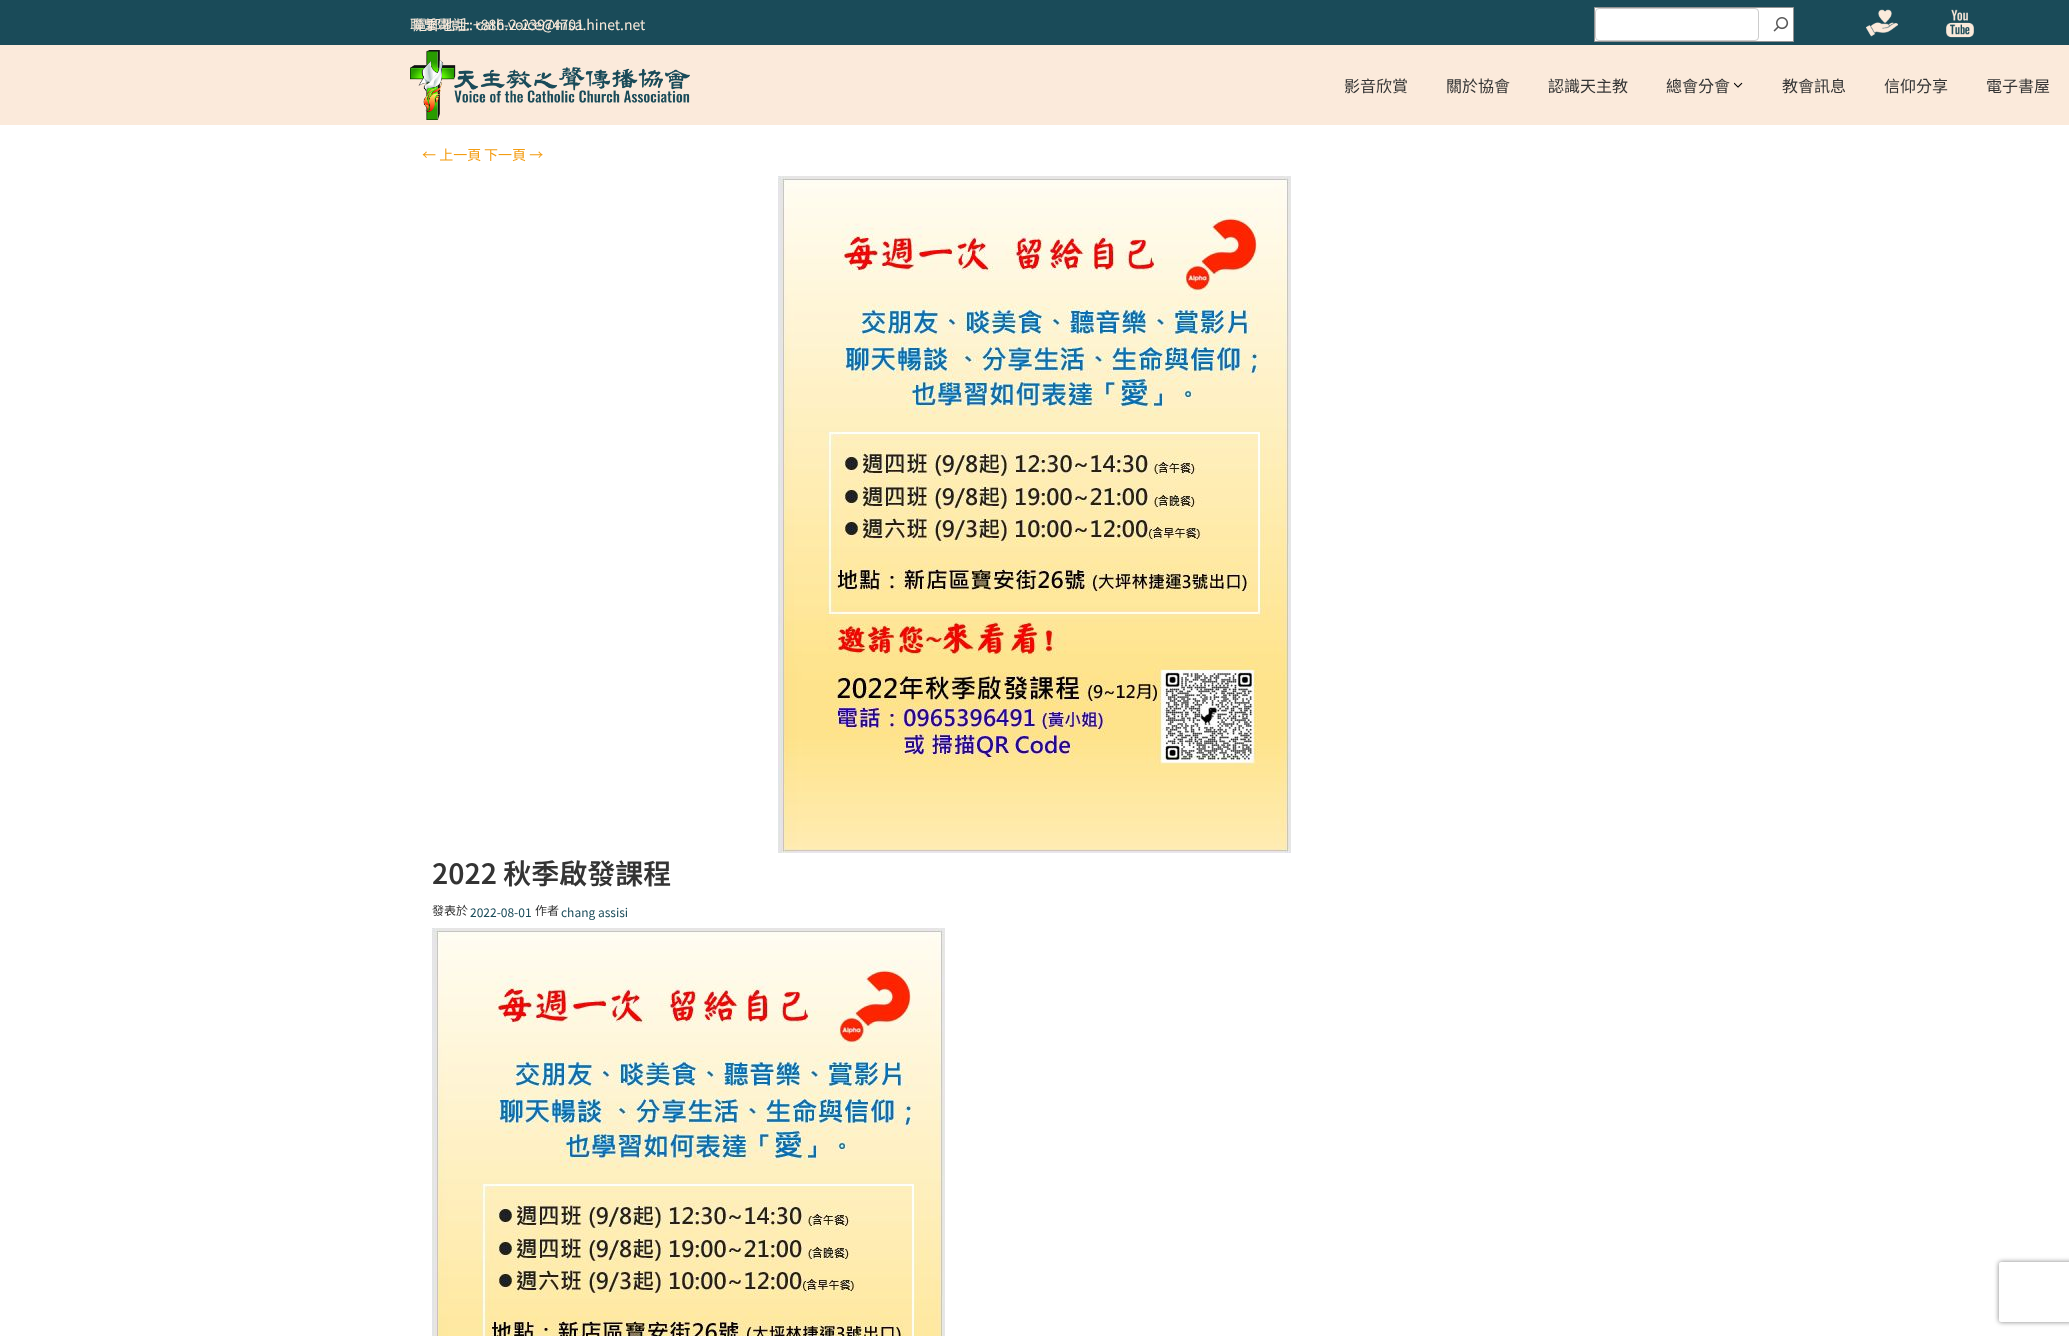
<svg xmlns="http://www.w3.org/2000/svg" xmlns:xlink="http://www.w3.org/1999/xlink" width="2069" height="1336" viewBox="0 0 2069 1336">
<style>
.cls-1{font:14px Noto Sans TC;fill:#fbeadb}
.cls-2{font:16px Noto Sans TC;fill:#343434}
.cls-3{font:14px Noto Sans TC;fill:#f39c11}
.cls-4{font:600 28px Noto Sans TC;fill:#343434}
.cls-5{font:12px Noto Sans TC;fill:#343434}
.cls-6{font:12px Noto Sans TC;fill:#1a4b59}
</style>
<defs>
<clipPath id="clip1"><path d="M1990 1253H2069V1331H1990ZM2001 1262H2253C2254 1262 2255 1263 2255 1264V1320C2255 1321 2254 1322 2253 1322H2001C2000 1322 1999 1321 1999 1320V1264C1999 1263 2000 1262 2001 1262Z" clip-rule="evenodd"/></clipPath>
</defs>
<rect width="100%" height="100%" fill="#ffffff"/>
<rect fill="#1a4b59" x="0" y="0" width="2069" height="45"/>
<rect fill="#ffffff" stroke="#949494" x="1594.5" y="7.5" width="199" height="34"/>
<rect fill="none" stroke="#cccccc" x="1595.5" y="8.5" width="163" height="32" rx="3.5"/>
<image xlink:href="image0.png" x="1773" y="17" width="16" height="15"/>
<image xlink:href="image1.png" x="1866" y="9" width="32" height="28"/>
<image xlink:href="image2.png" x="1946" y="9" width="28" height="29"/>
<rect fill="#fbeadb" x="0" y="45" width="2069" height="80"/>
<image xlink:href="image3.png" x="410" y="50" width="280" height="70"/>
<image xlink:href="image4.png" x="1734" y="82" width="9" height="6"/>
<image xlink:href="image5.png" x="778" y="176" width="513" height="677"/>
<image xlink:href="image6.png" x="432" y="928" width="513" height="408"/>
<g clip-path="url(#clip1)">
<rect fill="#808080" filter="blur(2.5px)" x="1999" y="1262" width="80" height="60" rx="2"/>
</g>
<text class="cls-1" x="410" y="30">聯繫電話: +886-2-23974701</text>
<text class="cls-1" x="413" y="30">電郵地址: cath.voice@msa.hinet.net</text>
<text class="cls-2" x="1344" y="92">影音欣賞</text>
<text class="cls-2" x="1446" y="92">關於協會</text>
<text class="cls-2" x="1548" y="92">認識天主教</text>
<text class="cls-2" x="1666" y="92">總會分會</text>
<text class="cls-2" x="1782" y="92">教會訊息</text>
<text class="cls-2" x="1884" y="92">信仰分享</text>
<text class="cls-2" x="1986" y="92">電子書屋</text>
<text class="cls-3" x="422" y="160">← 上一頁</text>
<text class="cls-3" x="484" y="160">下一頁 →</text>
<text class="cls-4" x="432" y="884">2022 秋季啟發課程</text>
<text class="cls-5" x="432" y="915">發表於</text>
<text class="cls-6" x="470" y="917">2022-08-01</text>
<text class="cls-5" x="535" y="915">作者</text>
<text class="cls-6" x="561" y="917">chang assisi</text>
</svg>
